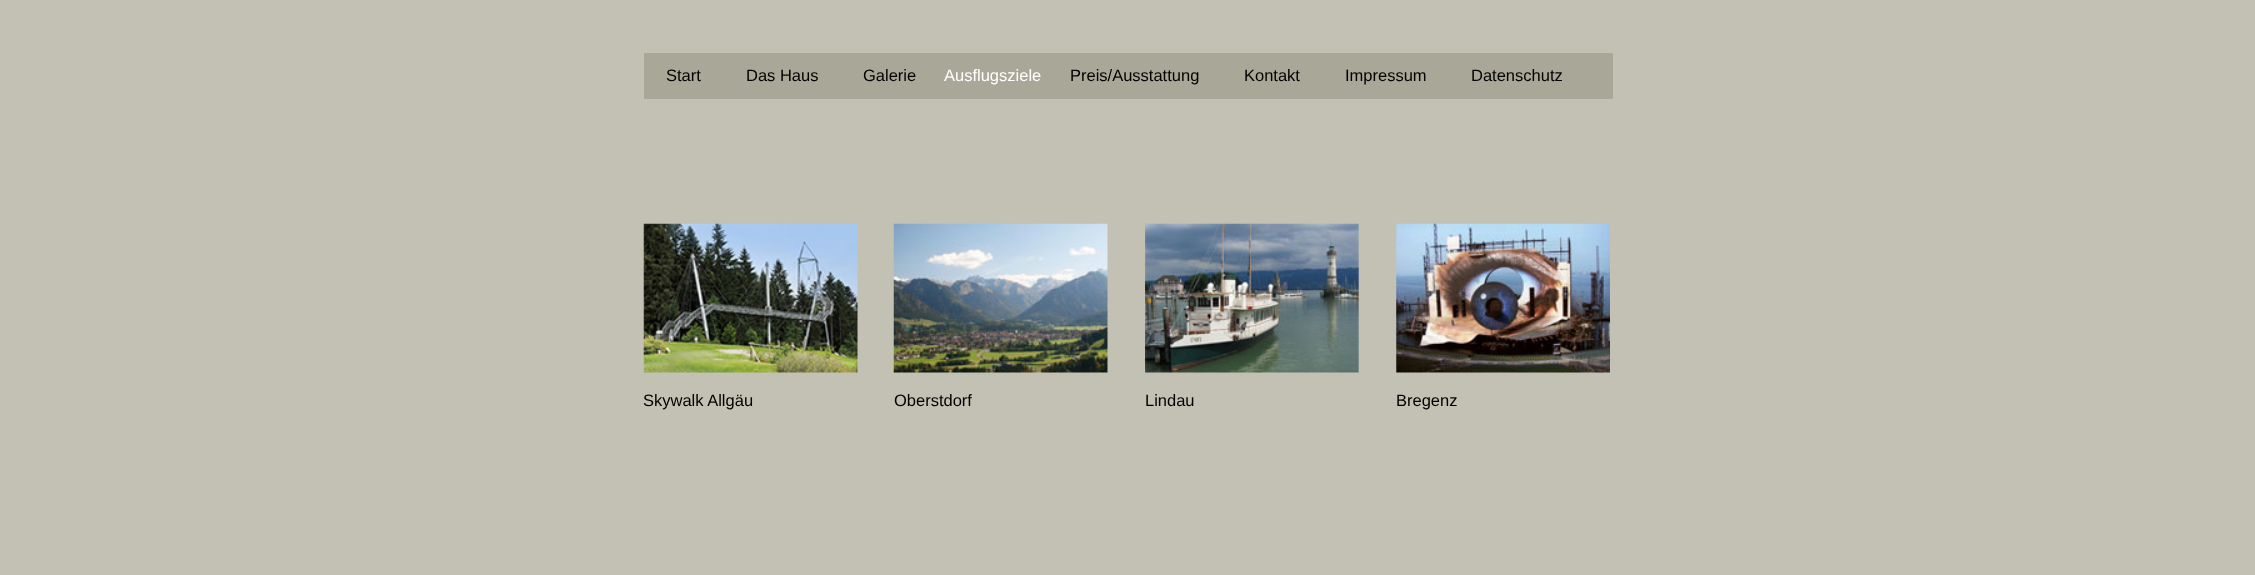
<svg xmlns="http://www.w3.org/2000/svg" xmlns:xlink="http://www.w3.org/1999/xlink" width="2255" height="575" viewBox="0 0 2255 575">
<style>
.cls-1{font:16.5px Liberation Sans;fill:#000000}
.cls-2{font:16.5px Liberation Sans;fill:#ffffff}
</style>
<rect width="100%" height="100%" fill="#c2c1b3"/>
<rect fill="#a9a898" x="644" y="53" width="969" height="46"/>
<image xlink:href="image0.png" x="643" y="223" width="215" height="150"/>
<image xlink:href="image1.png" x="893" y="223" width="215" height="150"/>
<image xlink:href="image2.png" x="1145" y="223" width="214" height="150"/>
<image xlink:href="image3.png" x="1396" y="223" width="214" height="150"/>
<text class="cls-1" x="666" y="81">Start</text>
<text class="cls-1" x="746" y="81">Das Haus</text>
<text class="cls-1" x="863" y="81">Galerie</text>
<text class="cls-2" x="944" y="81">Ausflugsziele</text>
<text class="cls-1" x="1070" y="81">Preis/Ausstattung</text>
<text class="cls-1" x="1244" y="81">Kontakt</text>
<text class="cls-1" x="1345" y="81">Impressum</text>
<text class="cls-1" x="1471" y="81">Datenschutz</text>
<text class="cls-1" x="643" y="406">Skywalk Allgäu</text>
<text class="cls-1" x="894" y="406">Oberstdorf</text>
<text class="cls-1" x="1145" y="406">Lindau</text>
<text class="cls-1" x="1396" y="406">Bregenz</text>
</svg>
